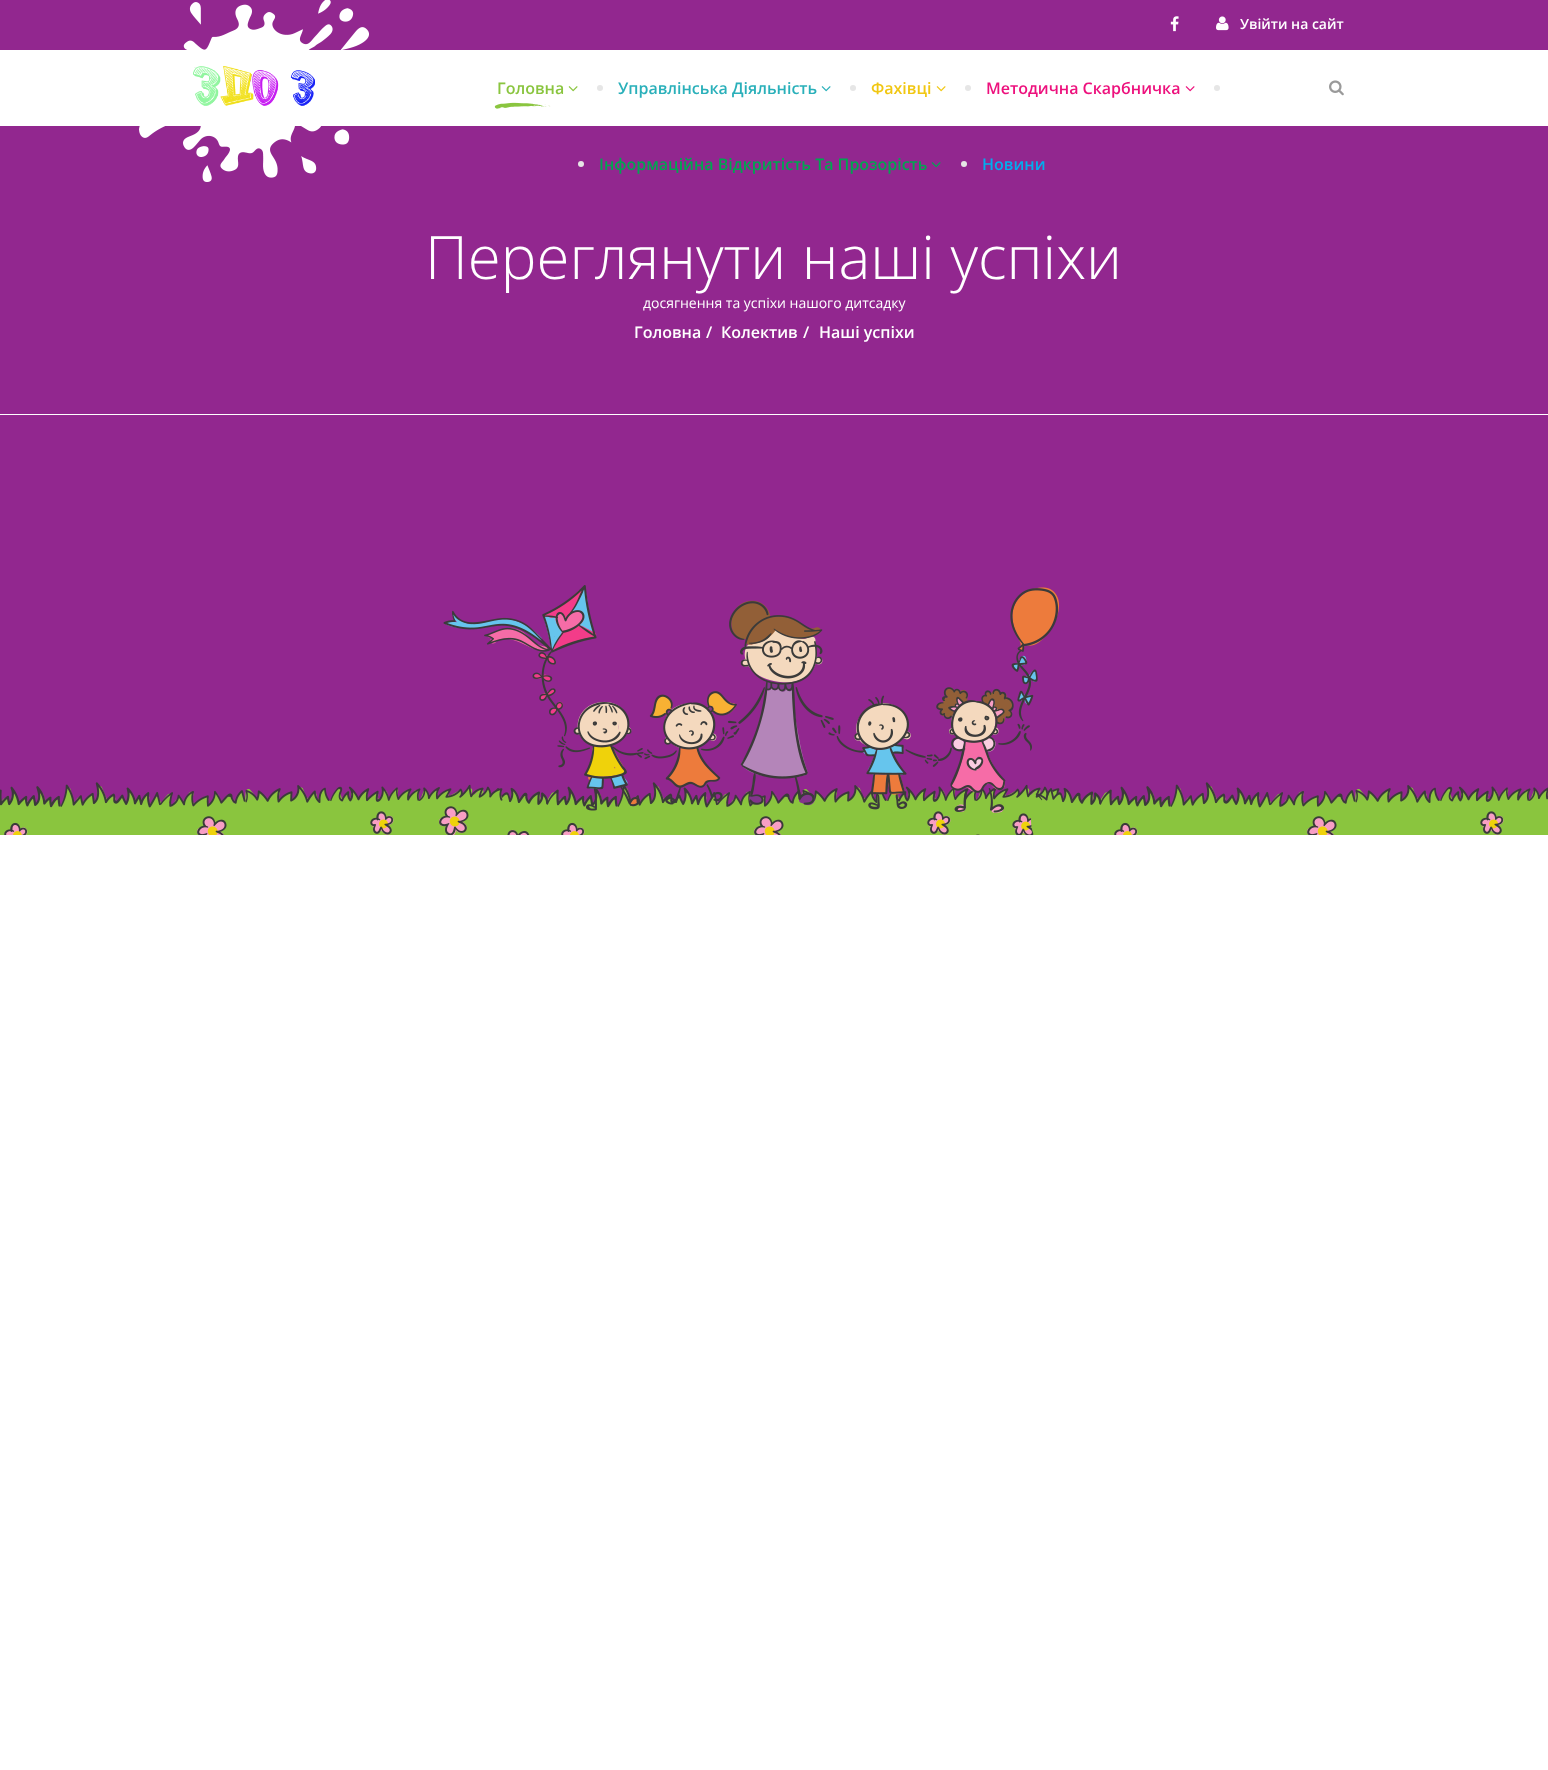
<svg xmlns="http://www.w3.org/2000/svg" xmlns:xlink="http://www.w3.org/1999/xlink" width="1548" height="1770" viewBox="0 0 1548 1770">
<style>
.cls-1{font:600 14px Open Sans;fill:#ffffff}
.cls-2{font:600 16px Open Sans;fill:#8ac53f}
.cls-3{font:600 16px Open Sans;fill:#2ab0ba}
.cls-4{font:600 16px Open Sans;fill:#f1c712}
.cls-5{font:600 16px Open Sans;fill:#ed117d}
.cls-6{font:600 16px Open Sans;fill:#00a651}
.cls-7{font:600 16px Open Sans;fill:#00aeef}
.cls-8{font:300 60px Open Sans;fill:#ffffff}
.cls-9{font:14px Open Sans;fill:#ffffff}
.cls-10{font:600 16px Open Sans;fill:#ffffff}
</style>
<rect width="100%" height="100%" fill="#ffffff"/>
<rect fill="#92278f" x="0" y="0" width="1548" height="414"/>
<image xlink:href="image0.png" x="1170" y="16" width="9" height="16"/>
<image xlink:href="image1.png" x="1216" y="16" width="13" height="15"/>
<rect fill="#ffffff" x="0" y="50" width="1548" height="76"/>
<image xlink:href="image2.png" x="139" y="0" width="230" height="182"/>
<image xlink:href="image3.png" x="568" y="86" width="10" height="6"/>
<image xlink:href="image4.png" x="494" y="102" width="57" height="7"/>
<circle fill="#e6e6e6" cx="600" cy="88" r="3"/>
<image xlink:href="image5.png" x="821" y="86" width="10" height="6"/>
<circle fill="#e6e6e6" cx="853" cy="88" r="3"/>
<image xlink:href="image6.png" x="936" y="86" width="10" height="6"/>
<circle fill="#e6e6e6" cx="968" cy="88" r="3"/>
<image xlink:href="image7.png" x="1185" y="86" width="10" height="6"/>
<circle fill="#e6e6e6" cx="1217" cy="88" r="3"/>
<circle fill="#e6e6e6" cx="581" cy="164" r="3"/>
<image xlink:href="image8.png" x="931" y="162" width="10" height="6"/>
<circle fill="#e6e6e6" cx="964" cy="164" r="3"/>
<image xlink:href="image9.png" x="1329" y="80" width="15" height="16"/>
<rect fill="#92278f" x="0" y="415" width="1548" height="392"/>
<image xlink:href="image10.png" x="0" y="585" width="1548" height="250"/>
<text class="cls-1" x="1240" y="29">Увійти на сайт</text>
<text class="cls-2" x="497" y="94">Головна</text>
<text class="cls-3" x="618" y="94">Управлінська Діяльність</text>
<text class="cls-4" x="871" y="94">Фахівці</text>
<text class="cls-5" x="986" y="94">Методична Cкарбничка</text>
<text class="cls-6" x="599" y="170">Інформаційна Відкритість Та Прозорість</text>
<text class="cls-7" x="982" y="170">Новини</text>
<text class="cls-8" x="425" y="279">Переглянути наші успіхи</text>
<text class="cls-9" x="643" y="308">досягнення та успіхи нашого дитсадку</text>
<text class="cls-10" x="634" y="338">Головна</text>
<text class="cls-10" x="706" y="338">/</text>
<text class="cls-10" x="721" y="338">Колектив</text>
<text class="cls-10" x="803" y="338">/</text>
<text class="cls-10" x="819" y="338">Наші успіхи</text>
</svg>
